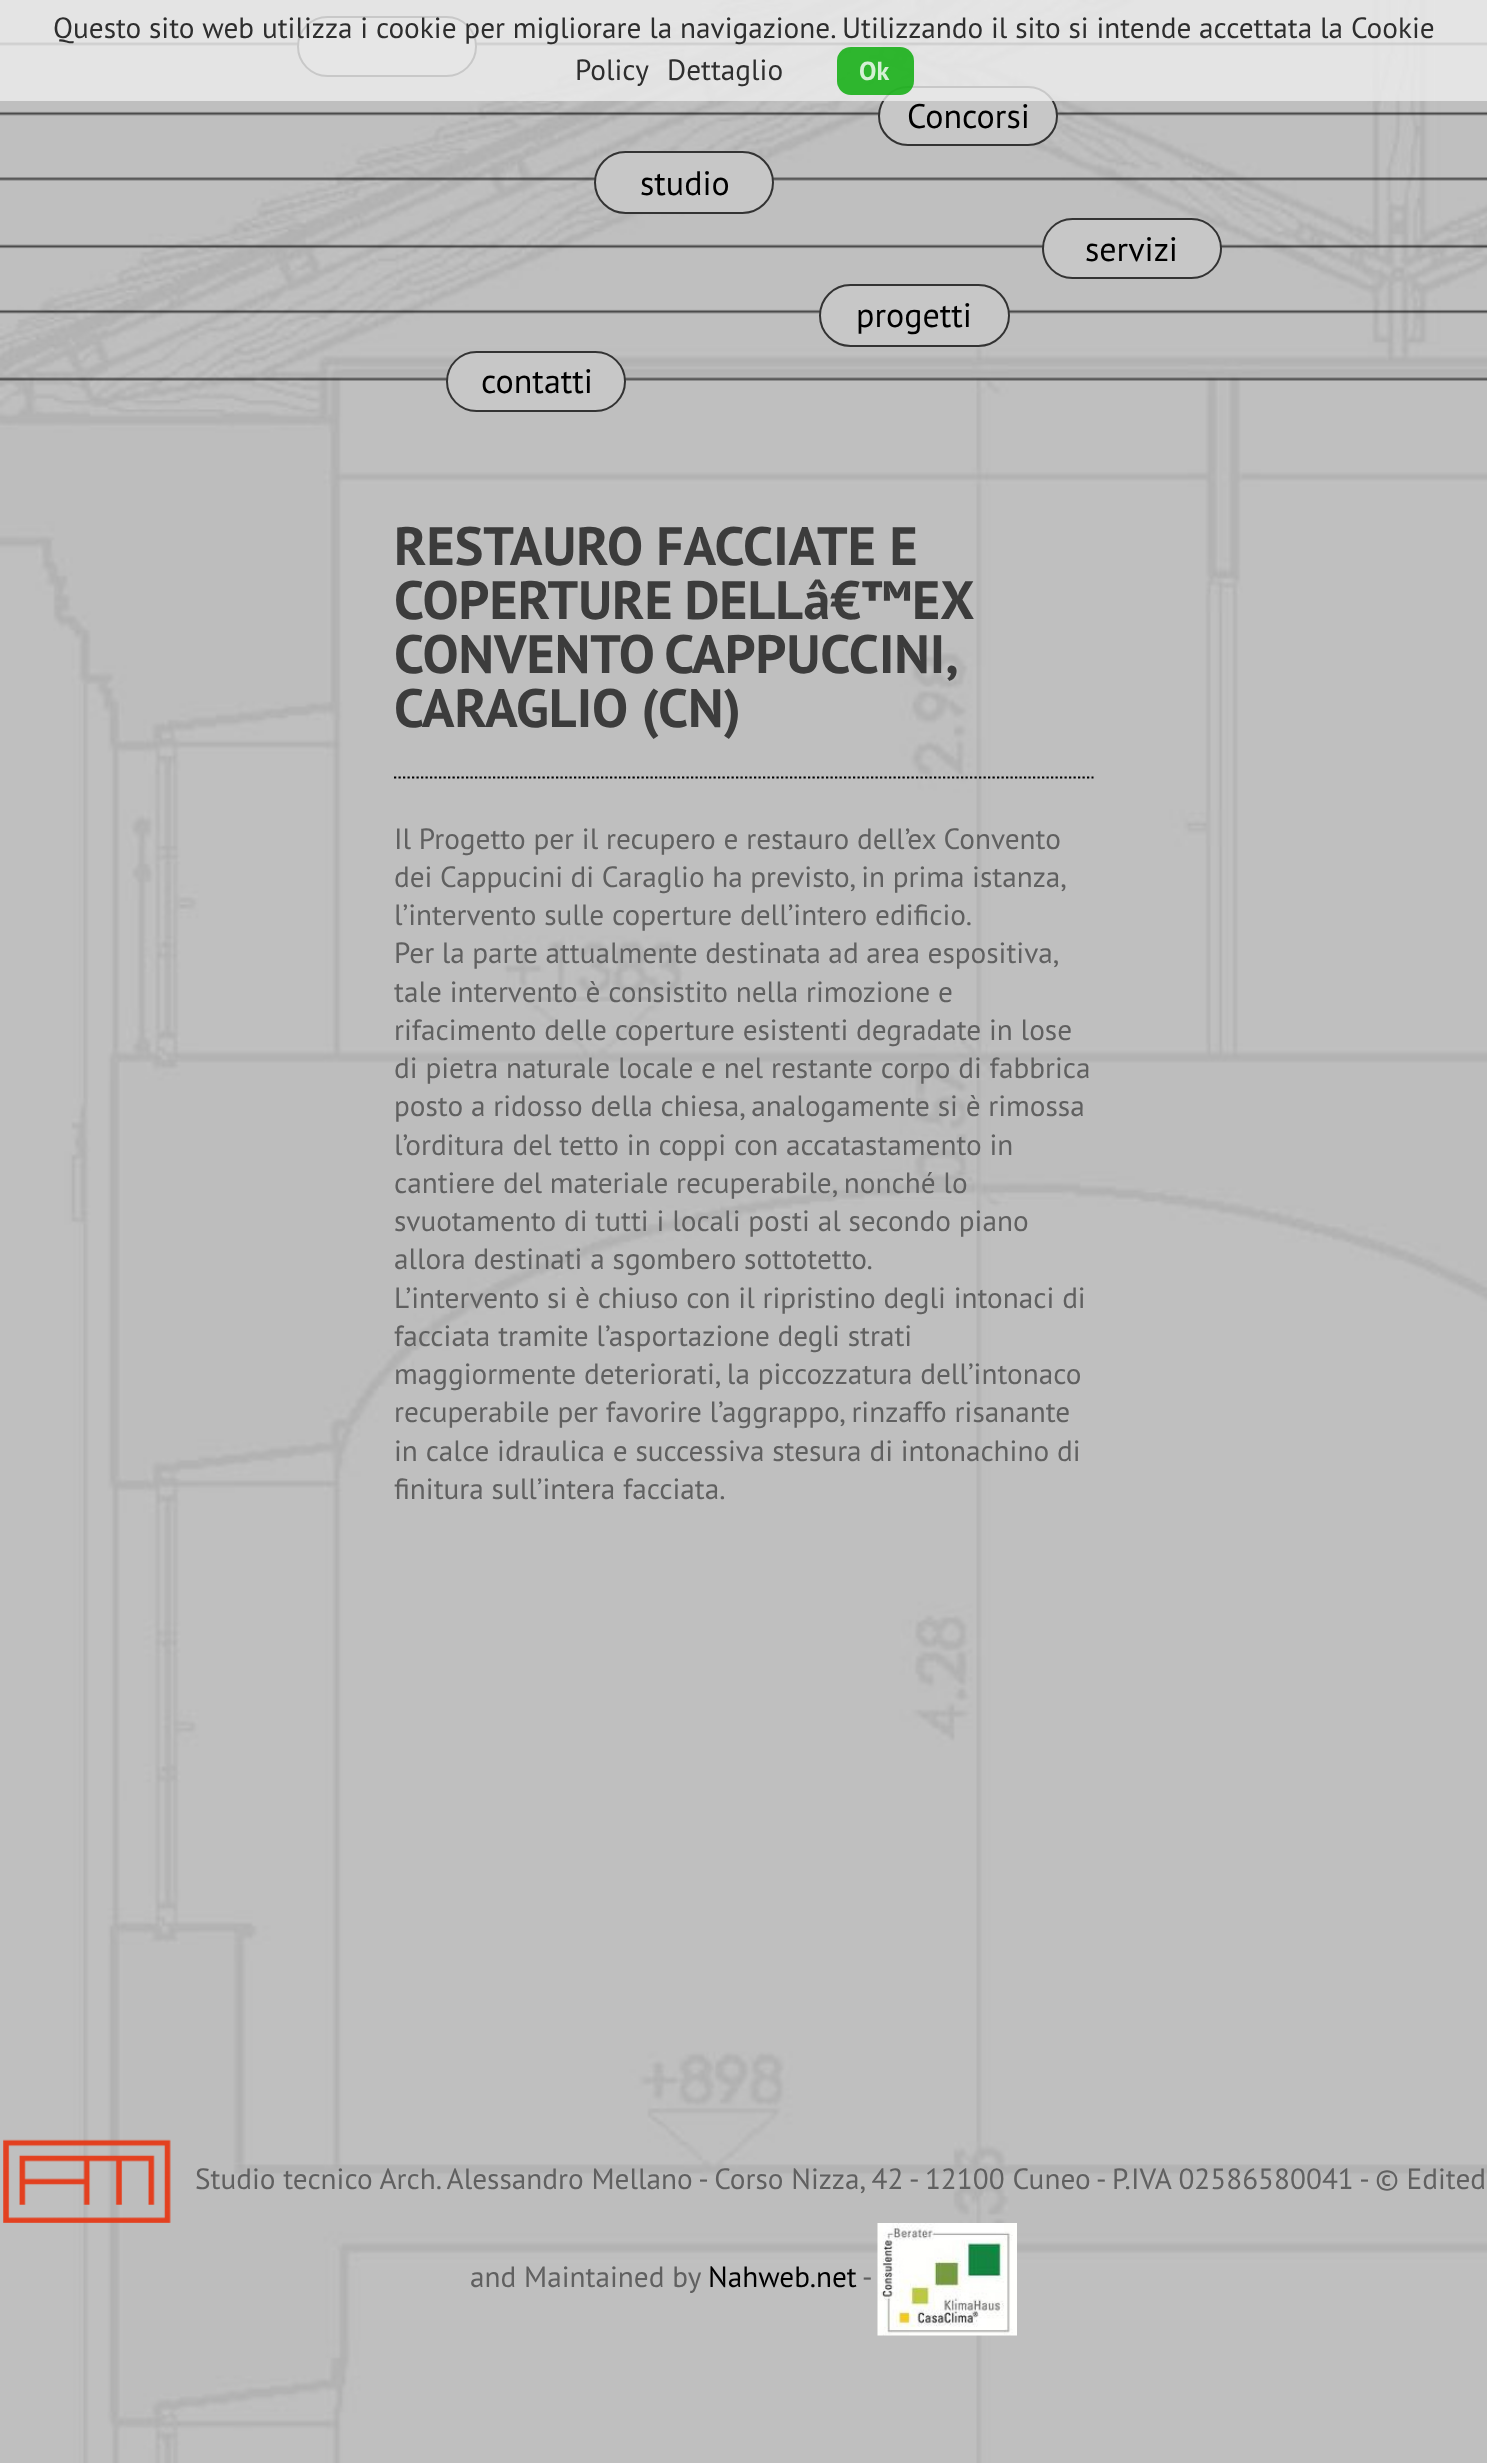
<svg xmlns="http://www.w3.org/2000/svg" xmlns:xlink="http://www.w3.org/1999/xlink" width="1487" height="2463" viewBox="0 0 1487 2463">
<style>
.cls-1{font:29.25px PT Sans;fill:#2e2e2e}
.cls-2{font:bold 26px PT Sans;fill:#d5f0d5}
.cls-3{font:34px PT Sans;fill:#000000}
.cls-4{font:bold 54px PT Sans;fill:#3c3c3c}
.cls-5{font:29.25px PT Sans;fill:#606060}
.cls-6{font:29.25px PT Sans;fill:#000000}
</style>
<rect width="100%" height="100%" fill="#ffffff"/>
<image xlink:href="image0.png" x="0" y="0" width="1487" height="2463"/>
<image xlink:href="image1.png" x="0" y="42" width="1487" height="4"/>
<rect fill="#c7c7c7" stroke="#333333" stroke-width="2" x="298" y="17" width="178" height="59" rx="29.5"/>
<image xlink:href="image2.png" x="0" y="111" width="1487" height="5"/>
<rect fill="#c7c7c7" stroke="#333333" stroke-width="2" x="879" y="87" width="178" height="58" rx="29"/>
<rect fill="#eeeeee" fill-opacity="0.8" x="0" y="0" width="1487" height="101"/>
<rect fill="#00aa00" fill-opacity="0.8" x="837" y="47" width="77" height="48" rx="14"/>
<image xlink:href="image3.png" x="0" y="177" width="1487" height="4"/>
<rect fill="#c7c7c7" stroke="#333333" stroke-width="2" x="595" y="152" width="178" height="61" rx="30.5"/>
<image xlink:href="image4.png" x="0" y="244" width="1487" height="5"/>
<rect fill="#c7c7c7" stroke="#333333" stroke-width="2" x="1043" y="219" width="178" height="59" rx="29.5"/>
<image xlink:href="image5.png" x="0" y="309" width="1487" height="5"/>
<rect fill="#c7c7c7" stroke="#333333" stroke-width="2" x="820" y="285" width="189" height="61" rx="30.5"/>
<image xlink:href="image6.png" x="0" y="377" width="1487" height="4"/>
<rect fill="#c7c7c7" stroke="#333333" stroke-width="2" x="447" y="352" width="178" height="59" rx="29.5"/>
<path fill="none" stroke="#000000" stroke-width="2.2" stroke-dasharray="2.25 2.25" d="M394 777.5H1093.5"/>
<image xlink:href="image7.png" x="3" y="2139" width="168" height="84"/>
<image xlink:href="image8.png" x="877" y="2223" width="140" height="113"/>
<text class="cls-1" x="53" y="38">Questo sito web utilizza i cookie per migliorare la navigazione. Utilizzando il sito si intende accettata la Cookie</text>
<text class="cls-1" x="575" y="80">Policy</text>
<text class="cls-1" x="667" y="80">Dettaglio</text>
<text class="cls-2" x="859" y="80">Ok</text>
<text class="cls-3" x="907" y="128">Concorsi</text>
<text class="cls-3" x="640" y="195">studio</text>
<text class="cls-3" x="1085" y="261">servizi</text>
<text class="cls-3" x="856" y="327">progetti</text>
<text class="cls-3" x="481" y="393">contatti</text>
<text class="cls-4"><tspan x="394" y="565">RESTAURO FACCIATE E</tspan><tspan x="394" y="619" word-spacing="-2">COPERTURE DELLâ€™EX</tspan><tspan x="394" y="673" word-spacing="-3">CONVENTO CAPPUCCINI,</tspan><tspan x="394" y="727">CARAGLIO (CN)</tspan></text>
<text class="cls-5"><tspan x="394" y="849">Il Progetto per il recupero e restauro dell’ex Convento</tspan><tspan x="394" y="887" word-spacing="-0.25">dei Cappucini di Caraglio ha previsto, in prima istanza,</tspan><tspan x="394" y="925">l’intervento sulle coperture dell’intero edificio.</tspan><tspan x="394" y="963" word-spacing="-0.25">Per la parte attualmente destinata ad area espositiva,</tspan><tspan x="394" y="1002">tale intervento è consistito nella rimozione e</tspan><tspan x="394" y="1040">rifacimento delle coperture esistenti degradate in lose</tspan><tspan x="394" y="1078">di pietra naturale locale e nel restante corpo di fabbrica</tspan><tspan x="394" y="1116">posto a ridosso della chiesa, analogamente si è rimossa</tspan><tspan x="394" y="1155">l’orditura del tetto in coppi con accatastamento in</tspan><tspan x="394" y="1193">cantiere del materiale recuperabile, nonché lo</tspan><tspan x="394" y="1231">svuotamento di tutti i locali posti al secondo piano</tspan><tspan x="394" y="1269">allora destinati a sgombero sottotetto.</tspan><tspan x="394" y="1308">L’intervento si è chiuso con il ripristino degli intonaci di</tspan><tspan x="394" y="1346">facciata tramite l’asportazione degli strati</tspan><tspan x="394" y="1384">maggiormente deteriorati, la piccozzatura dell’intonaco</tspan><tspan x="394" y="1422">recuperabile per favorire l’aggrappo, rinzaffo risanante</tspan><tspan x="394" y="1461">in calce idraulica e successiva stesura di intonachino di</tspan><tspan x="394" y="1499">finitura sull’intera facciata.</tspan></text>
<text class="cls-5" x="195" y="2189">Studio tecnico Arch. Alessandro Mellano - Corso Nizza, 42 - 12100 Cuneo - P.IVA 02586580041 - © Edited</text>
<text class="cls-5" x="470" y="2287">and Maintained by</text>
<text class="cls-6" x="708" y="2287">Nahweb.net</text>
<text class="cls-5" x="862" y="2287">-</text>
</svg>
